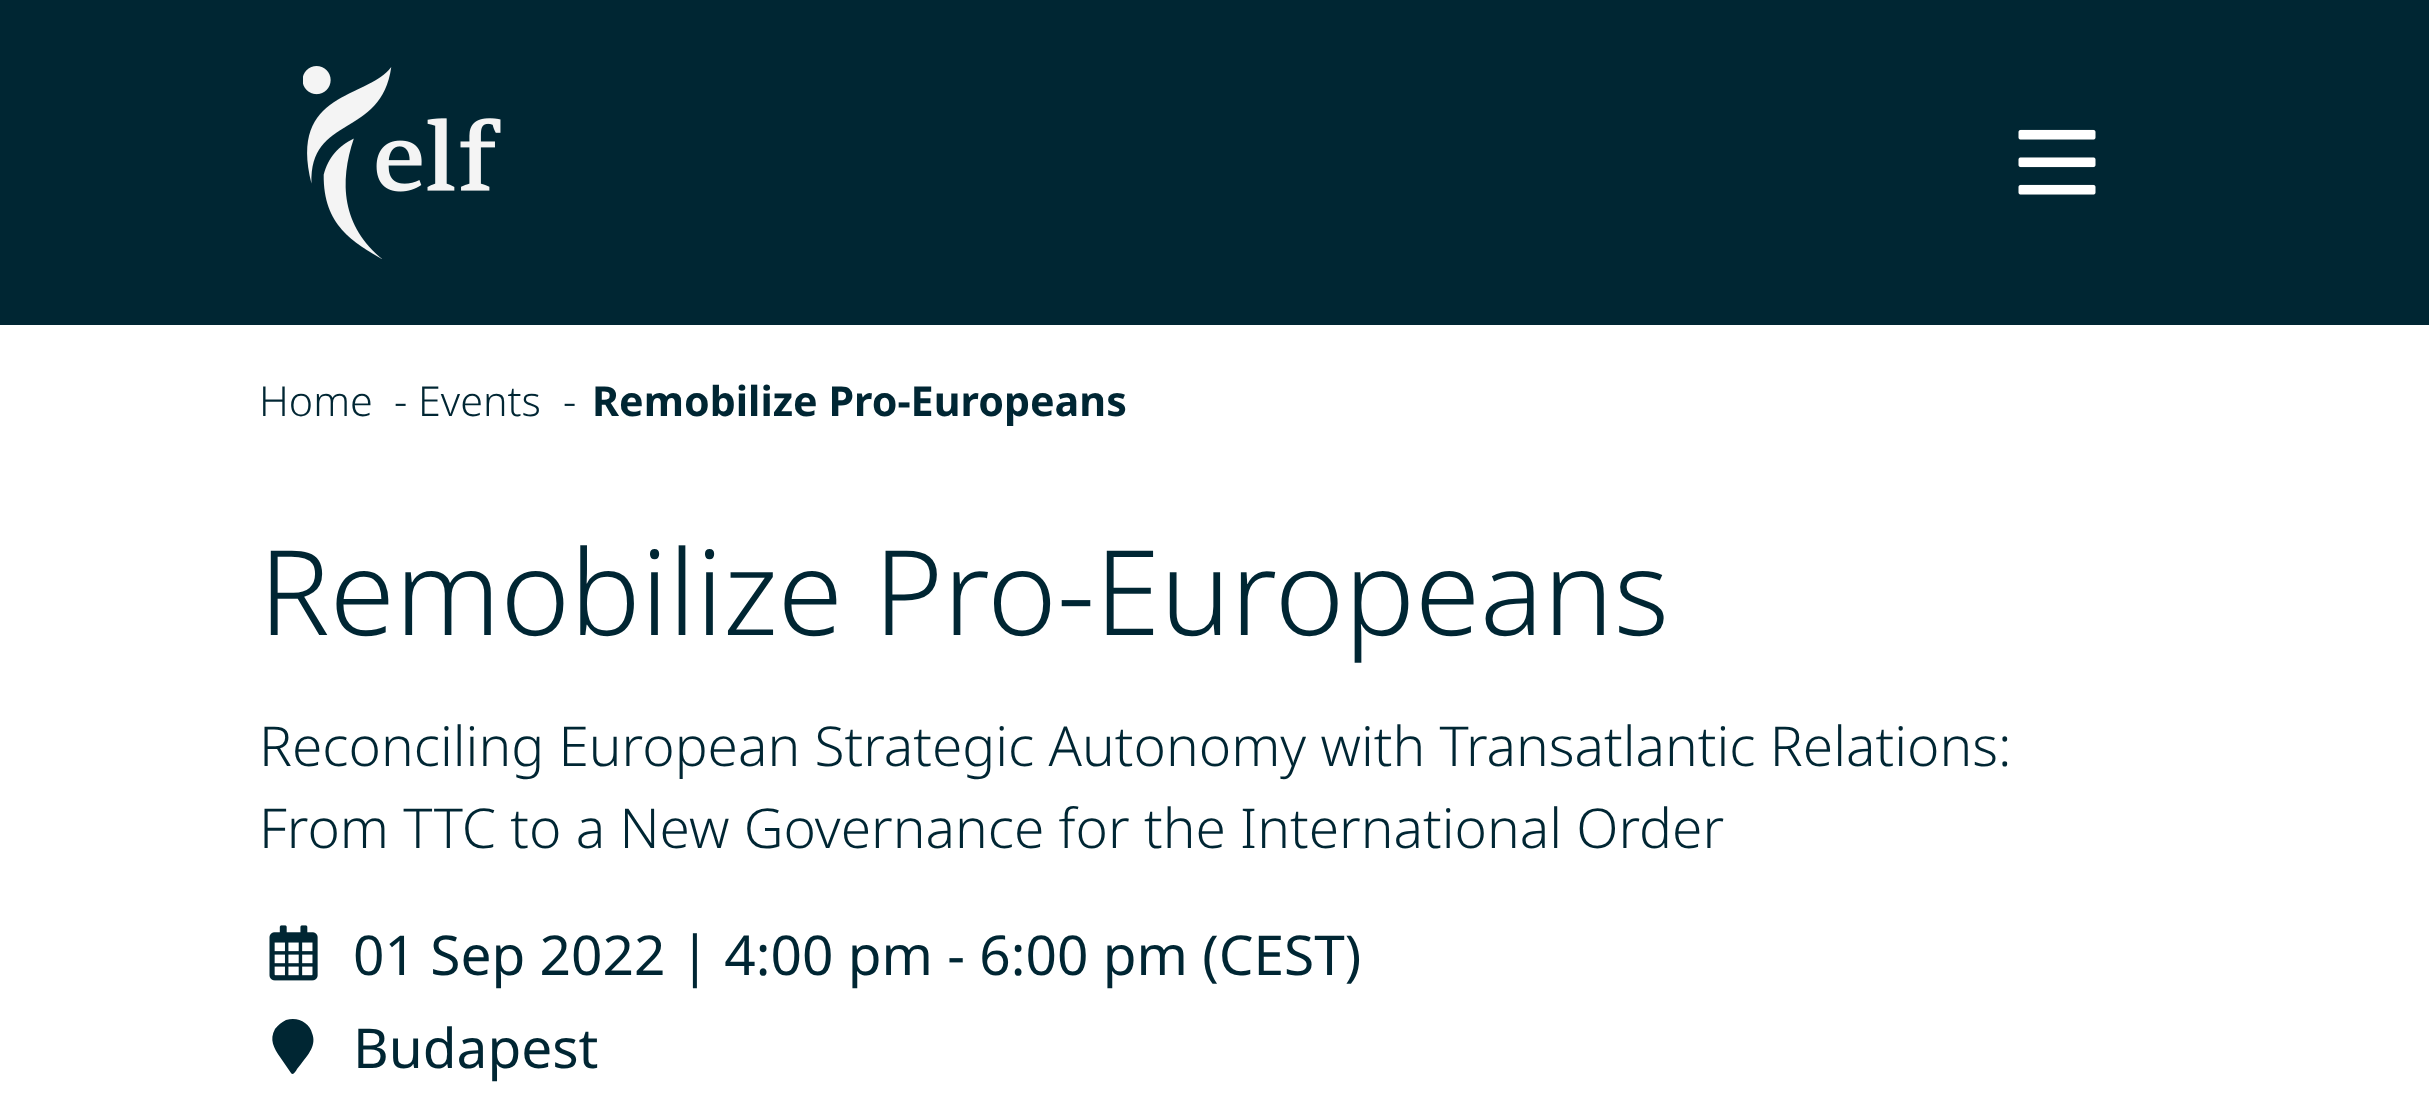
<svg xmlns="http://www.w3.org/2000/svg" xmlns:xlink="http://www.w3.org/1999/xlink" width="2429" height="1105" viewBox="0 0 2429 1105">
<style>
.cls-1{font:300 41.25px Noto Sans;fill:#002633}
.cls-2{font:bold 41.25px Noto Sans;fill:#002633}
.cls-3{font:300 118px Noto Sans;fill:#002633}
.cls-4{font:300 55px Noto Sans;fill:#002633}
.cls-5{font:55px Noto Sans;fill:#002633}
</style>
<rect width="100%" height="100%" fill="#ffffff"/>
<rect fill="#002633" x="0" y="0" width="2429" height="325"/>
<image xlink:href="image0.png" x="303" y="66" width="198" height="193"/>
<image xlink:href="image1.png" x="2018" y="129" width="78" height="66"/>
<image xlink:href="image2.png" x="269" y="925" width="49" height="56"/>
<path fill="#002633" d="M291 1073L280 1057C274 1048 269 1040 275 1029C278 1025 282 1022 286 1020C293 1018 300 1019 305 1023C309 1026 311 1029 312 1033C317 1045 308 1055 301 1064L297 1069C296 1071 293 1076 291 1073Z"/>
<text class="cls-1" x="259" y="416">Home</text>
<text class="cls-1" x="394" y="416">- Events</text>
<text class="cls-1" x="563" y="416">-</text>
<text class="cls-2" x="592" y="416">Remobilize Pro-Europeans</text>
<text class="cls-3" x="259" y="635">Remobilize Pro-Europeans</text>
<text class="cls-4"><tspan x="259" y="766">Reconciling European Strategic Autonomy with Transatlantic Relations:</tspan><tspan x="259" y="848">From TTC to a New Governance for the International Order</tspan></text>
<text class="cls-5"><tspan x="353" y="975">01 Sep 2022 | 4:00 pm - 6:00 pm (CEST)</tspan><tspan x="353" y="1068">Budapest</tspan></text>
</svg>
